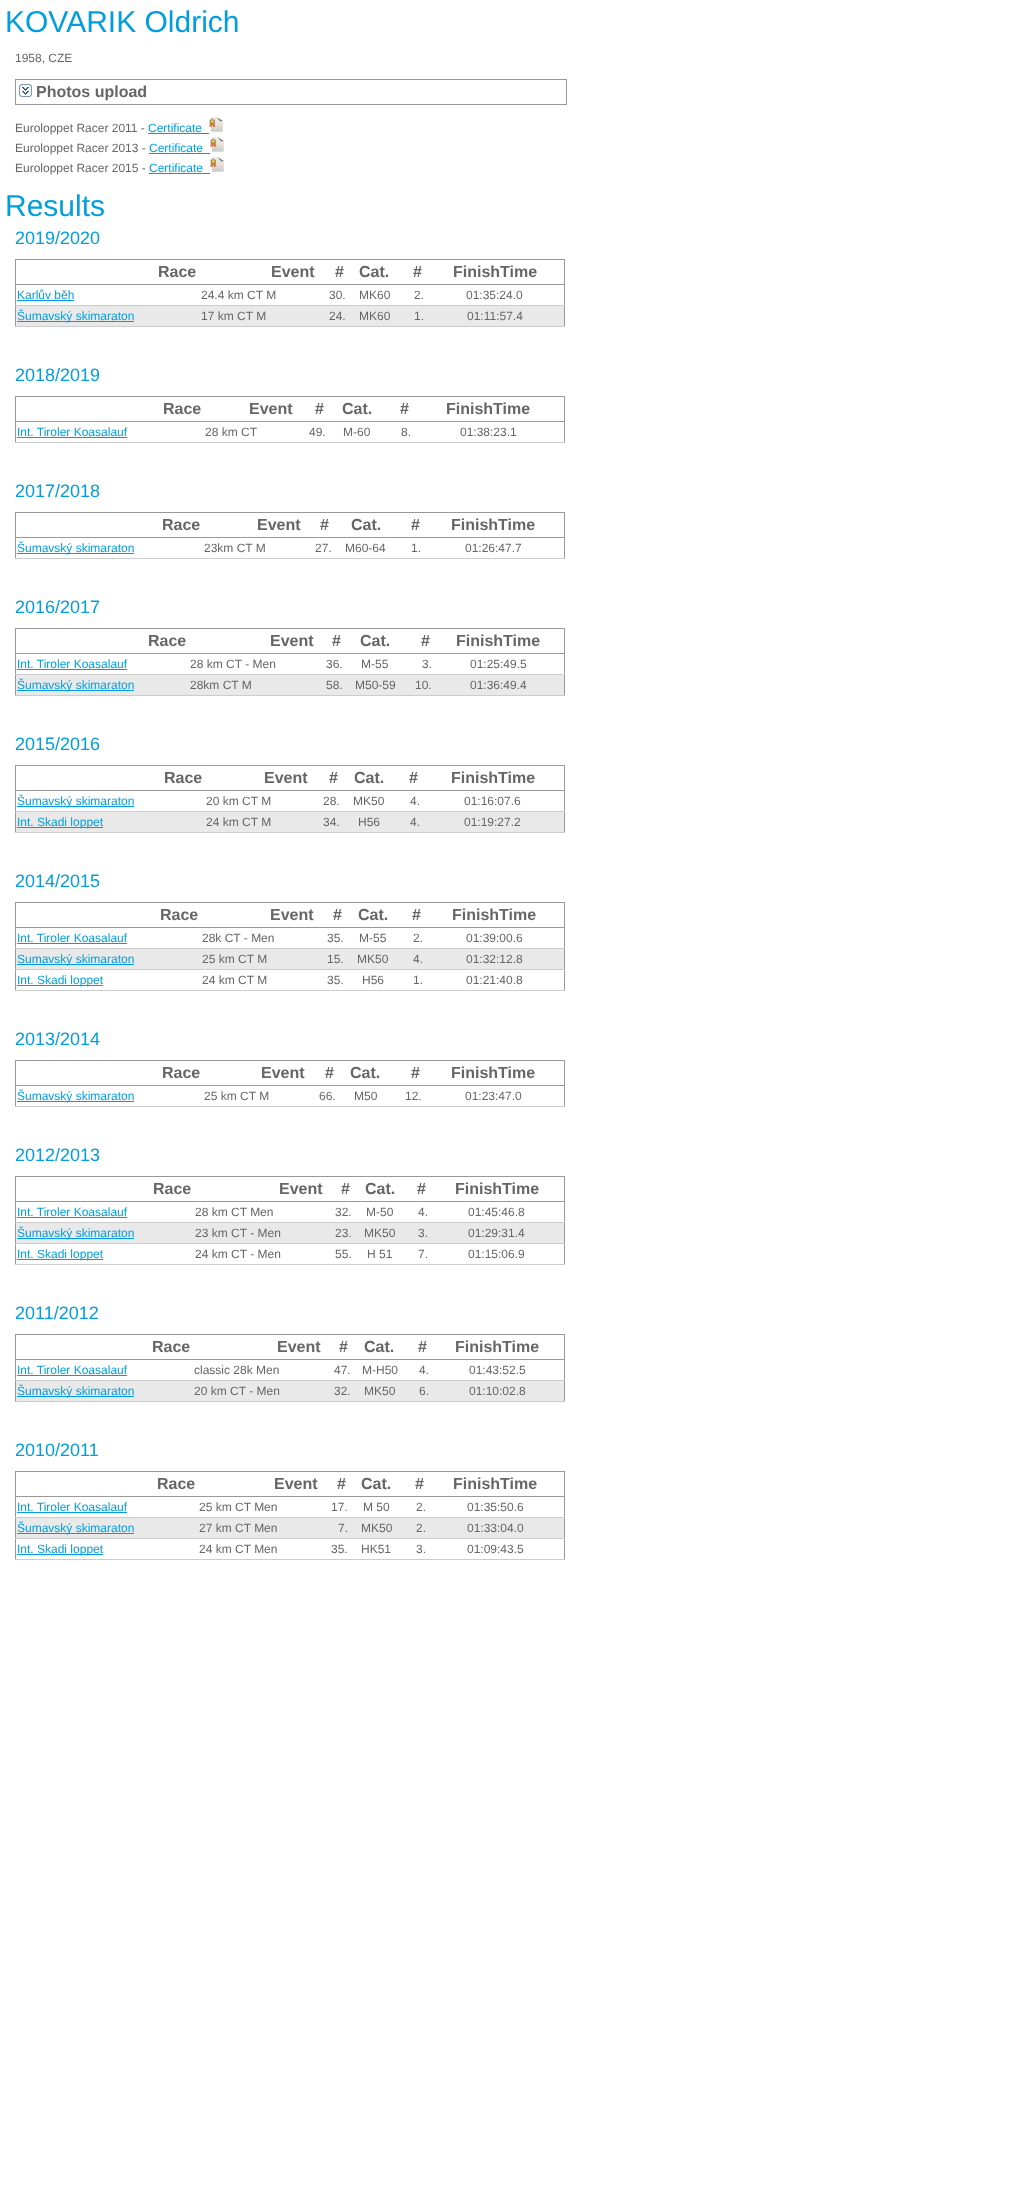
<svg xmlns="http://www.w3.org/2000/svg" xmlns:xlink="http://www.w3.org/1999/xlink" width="1029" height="2185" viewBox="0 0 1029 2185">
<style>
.cls-1{font:30px Liberation Sans;fill:#009ee0}
.cls-2{font:12px Liberation Sans;fill:#666666}
.cls-3{font:bold 16px Liberation Sans;fill:#666666}
.cls-4{font:12px Liberation Sans;fill:#009ee0}
.cls-5{font:18px Liberation Sans;fill:#009ee0}
</style>
<rect width="100%" height="100%" fill="#ffffff"/>
<rect fill="none" stroke="#999999" x="15.5" y="79.5" width="551" height="25"/>
<image xlink:href="image0.png" x="19" y="84" width="13" height="13"/>
<rect fill="#009ee0" x="148" y="133" width="61" height="1"/>
<image xlink:href="image1.png" x="209" y="117" width="14" height="15"/>
<rect fill="#009ee0" x="149" y="153" width="61" height="1"/>
<image xlink:href="image1.png" x="210" y="137" width="14" height="15"/>
<rect fill="#009ee0" x="149" y="173" width="61" height="1"/>
<image xlink:href="image1.png" x="210" y="157" width="14" height="15"/>
<rect fill="#999999" x="15" y="259" width="550" height="1"/>
<rect fill="#999999" x="564" y="259" width="1" height="68"/>
<rect fill="#999999" x="15" y="259" width="1" height="68"/>
<rect fill="#999999" x="15" y="284" width="550" height="1"/>
<rect fill="#009ee0" x="17" y="300" width="57" height="1"/>
<rect fill="#cccccc" x="15" y="305" width="550" height="1"/>
<rect fill="#e9e9e9" x="16" y="306" width="548" height="20"/>
<rect fill="#009ee0" x="17" y="321" width="117" height="1"/>
<rect fill="#cccccc" x="15" y="326" width="550" height="1"/>
<rect fill="#999999" x="15" y="396" width="550" height="1"/>
<rect fill="#999999" x="564" y="396" width="1" height="47"/>
<rect fill="#999999" x="15" y="396" width="1" height="47"/>
<rect fill="#999999" x="15" y="421" width="550" height="1"/>
<rect fill="#009ee0" x="17" y="437" width="110" height="1"/>
<rect fill="#cccccc" x="15" y="442" width="550" height="1"/>
<rect fill="#999999" x="15" y="512" width="550" height="1"/>
<rect fill="#999999" x="564" y="512" width="1" height="47"/>
<rect fill="#999999" x="15" y="512" width="1" height="47"/>
<rect fill="#999999" x="15" y="537" width="550" height="1"/>
<rect fill="#009ee0" x="17" y="553" width="117" height="1"/>
<rect fill="#cccccc" x="15" y="558" width="550" height="1"/>
<rect fill="#999999" x="15" y="628" width="550" height="1"/>
<rect fill="#999999" x="564" y="628" width="1" height="68"/>
<rect fill="#999999" x="15" y="628" width="1" height="68"/>
<rect fill="#999999" x="15" y="653" width="550" height="1"/>
<rect fill="#009ee0" x="17" y="669" width="110" height="1"/>
<rect fill="#cccccc" x="15" y="674" width="550" height="1"/>
<rect fill="#e9e9e9" x="16" y="675" width="548" height="20"/>
<rect fill="#009ee0" x="17" y="690" width="117" height="1"/>
<rect fill="#cccccc" x="15" y="695" width="550" height="1"/>
<rect fill="#999999" x="15" y="765" width="550" height="1"/>
<rect fill="#999999" x="564" y="765" width="1" height="68"/>
<rect fill="#999999" x="15" y="765" width="1" height="68"/>
<rect fill="#999999" x="15" y="790" width="550" height="1"/>
<rect fill="#009ee0" x="17" y="806" width="117" height="1"/>
<rect fill="#cccccc" x="15" y="811" width="550" height="1"/>
<rect fill="#e9e9e9" x="16" y="812" width="548" height="20"/>
<rect fill="#009ee0" x="17" y="827" width="86" height="1"/>
<rect fill="#cccccc" x="15" y="832" width="550" height="1"/>
<rect fill="#999999" x="15" y="902" width="550" height="1"/>
<rect fill="#999999" x="564" y="902" width="1" height="89"/>
<rect fill="#999999" x="15" y="902" width="1" height="89"/>
<rect fill="#999999" x="15" y="927" width="550" height="1"/>
<rect fill="#009ee0" x="17" y="943" width="110" height="1"/>
<rect fill="#cccccc" x="15" y="948" width="550" height="1"/>
<rect fill="#e9e9e9" x="16" y="949" width="548" height="20"/>
<rect fill="#009ee0" x="17" y="964" width="117" height="1"/>
<rect fill="#cccccc" x="15" y="969" width="550" height="1"/>
<rect fill="#009ee0" x="17" y="985" width="86" height="1"/>
<rect fill="#cccccc" x="15" y="990" width="550" height="1"/>
<rect fill="#999999" x="15" y="1060" width="550" height="1"/>
<rect fill="#999999" x="564" y="1060" width="1" height="47"/>
<rect fill="#999999" x="15" y="1060" width="1" height="47"/>
<rect fill="#999999" x="15" y="1085" width="550" height="1"/>
<rect fill="#009ee0" x="17" y="1101" width="117" height="1"/>
<rect fill="#cccccc" x="15" y="1106" width="550" height="1"/>
<rect fill="#999999" x="15" y="1176" width="550" height="1"/>
<rect fill="#999999" x="564" y="1176" width="1" height="89"/>
<rect fill="#999999" x="15" y="1176" width="1" height="89"/>
<rect fill="#999999" x="15" y="1201" width="550" height="1"/>
<rect fill="#009ee0" x="17" y="1217" width="110" height="1"/>
<rect fill="#cccccc" x="15" y="1222" width="550" height="1"/>
<rect fill="#e9e9e9" x="16" y="1223" width="548" height="20"/>
<rect fill="#009ee0" x="17" y="1238" width="117" height="1"/>
<rect fill="#cccccc" x="15" y="1243" width="550" height="1"/>
<rect fill="#009ee0" x="17" y="1259" width="86" height="1"/>
<rect fill="#cccccc" x="15" y="1264" width="550" height="1"/>
<rect fill="#999999" x="15" y="1334" width="550" height="1"/>
<rect fill="#999999" x="564" y="1334" width="1" height="68"/>
<rect fill="#999999" x="15" y="1334" width="1" height="68"/>
<rect fill="#999999" x="15" y="1359" width="550" height="1"/>
<rect fill="#009ee0" x="17" y="1375" width="110" height="1"/>
<rect fill="#cccccc" x="15" y="1380" width="550" height="1"/>
<rect fill="#e9e9e9" x="16" y="1381" width="548" height="20"/>
<rect fill="#009ee0" x="17" y="1396" width="117" height="1"/>
<rect fill="#cccccc" x="15" y="1401" width="550" height="1"/>
<rect fill="#999999" x="15" y="1471" width="550" height="1"/>
<rect fill="#999999" x="564" y="1471" width="1" height="89"/>
<rect fill="#999999" x="15" y="1471" width="1" height="89"/>
<rect fill="#999999" x="15" y="1496" width="550" height="1"/>
<rect fill="#009ee0" x="17" y="1512" width="110" height="1"/>
<rect fill="#cccccc" x="15" y="1517" width="550" height="1"/>
<rect fill="#e9e9e9" x="16" y="1518" width="548" height="20"/>
<rect fill="#009ee0" x="17" y="1533" width="117" height="1"/>
<rect fill="#cccccc" x="15" y="1538" width="550" height="1"/>
<rect fill="#009ee0" x="17" y="1554" width="86" height="1"/>
<rect fill="#cccccc" x="15" y="1559" width="550" height="1"/>
<text class="cls-1" x="5" y="32">KOVARIK Oldrich</text>
<text class="cls-2" x="15" y="62">1958, CZE</text>
<text class="cls-3" x="36" y="97">Photos upload</text>
<text class="cls-2" x="15" y="132">Euroloppet Racer 2011 -</text>
<text class="cls-4" x="148" y="132">Certificate</text>
<text class="cls-2" x="15" y="152">Euroloppet Racer 2013 -</text>
<text class="cls-4" x="149" y="152">Certificate</text>
<text class="cls-2" x="15" y="172">Euroloppet Racer 2015 -</text>
<text class="cls-4" x="149" y="172">Certificate</text>
<text class="cls-1" x="5" y="216">Results</text>
<text class="cls-5" x="15" y="244">2019/2020</text>
<text class="cls-3" x="158" y="277">Race</text>
<text class="cls-3" x="271" y="277">Event</text>
<text class="cls-3" x="335" y="277">#</text>
<text class="cls-3" x="359" y="277">Cat.</text>
<text class="cls-3" x="413" y="277">#</text>
<text class="cls-3" x="453" y="277">FinishTime</text>
<text class="cls-4" x="17" y="299">Karlův běh</text>
<text class="cls-2" x="201" y="299">24.4 km CT M</text>
<text class="cls-2" x="329" y="299">30.</text>
<text class="cls-2" x="359" y="299">MK60</text>
<text class="cls-2" x="414" y="299">2.</text>
<text class="cls-2" x="466" y="299">01:35:24.0</text>
<text class="cls-4" x="17" y="320">Šumavský skimaraton</text>
<text class="cls-2" x="201" y="320">17 km CT M</text>
<text class="cls-2" x="329" y="320">24.</text>
<text class="cls-2" x="359" y="320">MK60</text>
<text class="cls-2" x="414" y="320">1.</text>
<text class="cls-2" x="467" y="320">01:11:57.4</text>
<text class="cls-5" x="15" y="381">2018/2019</text>
<text class="cls-3" x="163" y="414">Race</text>
<text class="cls-3" x="249" y="414">Event</text>
<text class="cls-3" x="315" y="414">#</text>
<text class="cls-3" x="342" y="414">Cat.</text>
<text class="cls-3" x="400" y="414">#</text>
<text class="cls-3" x="446" y="414">FinishTime</text>
<text class="cls-4" x="17" y="436">Int. Tiroler Koasalauf</text>
<text class="cls-2" x="205" y="436">28 km CT</text>
<text class="cls-2" x="309" y="436">49.</text>
<text class="cls-2" x="343" y="436">M-60</text>
<text class="cls-2" x="401" y="436">8.</text>
<text class="cls-2" x="460" y="436">01:38:23.1</text>
<text class="cls-5" x="15" y="497">2017/2018</text>
<text class="cls-3" x="162" y="530">Race</text>
<text class="cls-3" x="257" y="530">Event</text>
<text class="cls-3" x="320" y="530">#</text>
<text class="cls-3" x="351" y="530">Cat.</text>
<text class="cls-3" x="411" y="530">#</text>
<text class="cls-3" x="451" y="530">FinishTime</text>
<text class="cls-4" x="17" y="552">Šumavský skimaraton</text>
<text class="cls-2" x="204" y="552">23km CT M</text>
<text class="cls-2" x="315" y="552">27.</text>
<text class="cls-2" x="345" y="552">M60-64</text>
<text class="cls-2" x="411" y="552">1.</text>
<text class="cls-2" x="465" y="552">01:26:47.7</text>
<text class="cls-5" x="15" y="613">2016/2017</text>
<text class="cls-3" x="148" y="646">Race</text>
<text class="cls-3" x="270" y="646">Event</text>
<text class="cls-3" x="332" y="646">#</text>
<text class="cls-3" x="360" y="646">Cat.</text>
<text class="cls-3" x="421" y="646">#</text>
<text class="cls-3" x="456" y="646">FinishTime</text>
<text class="cls-4" x="17" y="668">Int. Tiroler Koasalauf</text>
<text class="cls-2" x="190" y="668">28 km CT - Men</text>
<text class="cls-2" x="326" y="668">36.</text>
<text class="cls-2" x="361" y="668">M-55</text>
<text class="cls-2" x="422" y="668">3.</text>
<text class="cls-2" x="470" y="668">01:25:49.5</text>
<text class="cls-4" x="17" y="689">Šumavský skimaraton</text>
<text class="cls-2" x="190" y="689">28km CT M</text>
<text class="cls-2" x="326" y="689">58.</text>
<text class="cls-2" x="355" y="689">M50-59</text>
<text class="cls-2" x="415" y="689">10.</text>
<text class="cls-2" x="470" y="689">01:36:49.4</text>
<text class="cls-5" x="15" y="750">2015/2016</text>
<text class="cls-3" x="164" y="783">Race</text>
<text class="cls-3" x="264" y="783">Event</text>
<text class="cls-3" x="329" y="783">#</text>
<text class="cls-3" x="354" y="783">Cat.</text>
<text class="cls-3" x="409" y="783">#</text>
<text class="cls-3" x="451" y="783">FinishTime</text>
<text class="cls-4" x="17" y="805">Šumavský skimaraton</text>
<text class="cls-2" x="206" y="805">20 km CT M</text>
<text class="cls-2" x="323" y="805">28.</text>
<text class="cls-2" x="353" y="805">MK50</text>
<text class="cls-2" x="410" y="805">4.</text>
<text class="cls-2" x="464" y="805">01:16:07.6</text>
<text class="cls-4" x="17" y="826">Int. Skadi loppet</text>
<text class="cls-2" x="206" y="826">24 km CT M</text>
<text class="cls-2" x="323" y="826">34.</text>
<text class="cls-2" x="358" y="826">H56</text>
<text class="cls-2" x="410" y="826">4.</text>
<text class="cls-2" x="464" y="826">01:19:27.2</text>
<text class="cls-5" x="15" y="887">2014/2015</text>
<text class="cls-3" x="160" y="920">Race</text>
<text class="cls-3" x="270" y="920">Event</text>
<text class="cls-3" x="333" y="920">#</text>
<text class="cls-3" x="358" y="920">Cat.</text>
<text class="cls-3" x="412" y="920">#</text>
<text class="cls-3" x="452" y="920">FinishTime</text>
<text class="cls-4" x="17" y="942">Int. Tiroler Koasalauf</text>
<text class="cls-2" x="202" y="942">28k CT - Men</text>
<text class="cls-2" x="327" y="942">35.</text>
<text class="cls-2" x="359" y="942">M-55</text>
<text class="cls-2" x="413" y="942">2.</text>
<text class="cls-2" x="466" y="942">01:39:00.6</text>
<text class="cls-4" x="17" y="963">Sumavský skimaraton</text>
<text class="cls-2" x="202" y="963">25 km CT M</text>
<text class="cls-2" x="327" y="963">15.</text>
<text class="cls-2" x="357" y="963">MK50</text>
<text class="cls-2" x="413" y="963">4.</text>
<text class="cls-2" x="466" y="963">01:32:12.8</text>
<text class="cls-4" x="17" y="984">Int. Skadi loppet</text>
<text class="cls-2" x="202" y="984">24 km CT M</text>
<text class="cls-2" x="327" y="984">35.</text>
<text class="cls-2" x="362" y="984">H56</text>
<text class="cls-2" x="413" y="984">1.</text>
<text class="cls-2" x="466" y="984">01:21:40.8</text>
<text class="cls-5" x="15" y="1045">2013/2014</text>
<text class="cls-3" x="162" y="1078">Race</text>
<text class="cls-3" x="261" y="1078">Event</text>
<text class="cls-3" x="325" y="1078">#</text>
<text class="cls-3" x="350" y="1078">Cat.</text>
<text class="cls-3" x="411" y="1078">#</text>
<text class="cls-3" x="451" y="1078">FinishTime</text>
<text class="cls-4" x="17" y="1100">Šumavský skimaraton</text>
<text class="cls-2" x="204" y="1100">25 km CT M</text>
<text class="cls-2" x="319" y="1100">66.</text>
<text class="cls-2" x="354" y="1100">M50</text>
<text class="cls-2" x="405" y="1100">12.</text>
<text class="cls-2" x="465" y="1100">01:23:47.0</text>
<text class="cls-5" x="15" y="1161">2012/2013</text>
<text class="cls-3" x="153" y="1194">Race</text>
<text class="cls-3" x="279" y="1194">Event</text>
<text class="cls-3" x="341" y="1194">#</text>
<text class="cls-3" x="365" y="1194">Cat.</text>
<text class="cls-3" x="417" y="1194">#</text>
<text class="cls-3" x="455" y="1194">FinishTime</text>
<text class="cls-4" x="17" y="1216">Int. Tiroler Koasalauf</text>
<text class="cls-2" x="195" y="1216">28 km CT Men</text>
<text class="cls-2" x="335" y="1216">32.</text>
<text class="cls-2" x="366" y="1216">M-50</text>
<text class="cls-2" x="418" y="1216">4.</text>
<text class="cls-2" x="468" y="1216">01:45:46.8</text>
<text class="cls-4" x="17" y="1237">Šumavský skimaraton</text>
<text class="cls-2" x="195" y="1237">23 km CT - Men</text>
<text class="cls-2" x="335" y="1237">23.</text>
<text class="cls-2" x="364" y="1237">MK50</text>
<text class="cls-2" x="418" y="1237">3.</text>
<text class="cls-2" x="468" y="1237">01:29:31.4</text>
<text class="cls-4" x="17" y="1258">Int. Skadi loppet</text>
<text class="cls-2" x="195" y="1258">24 km CT - Men</text>
<text class="cls-2" x="335" y="1258">55.</text>
<text class="cls-2" x="367" y="1258">H 51</text>
<text class="cls-2" x="418" y="1258">7.</text>
<text class="cls-2" x="468" y="1258">01:15:06.9</text>
<text class="cls-5" x="15" y="1319">2011/2012</text>
<text class="cls-3" x="152" y="1352">Race</text>
<text class="cls-3" x="277" y="1352">Event</text>
<text class="cls-3" x="339" y="1352">#</text>
<text class="cls-3" x="364" y="1352">Cat.</text>
<text class="cls-3" x="418" y="1352">#</text>
<text class="cls-3" x="455" y="1352">FinishTime</text>
<text class="cls-4" x="17" y="1374">Int. Tiroler Koasalauf</text>
<text class="cls-2" x="194" y="1374">classic 28k Men</text>
<text class="cls-2" x="334" y="1374">47.</text>
<text class="cls-2" x="362" y="1374">M-H50</text>
<text class="cls-2" x="419" y="1374">4.</text>
<text class="cls-2" x="469" y="1374">01:43:52.5</text>
<text class="cls-4" x="17" y="1395">Šumavský skimaraton</text>
<text class="cls-2" x="194" y="1395">20 km CT - Men</text>
<text class="cls-2" x="334" y="1395">32.</text>
<text class="cls-2" x="364" y="1395">MK50</text>
<text class="cls-2" x="419" y="1395">6.</text>
<text class="cls-2" x="469" y="1395">01:10:02.8</text>
<text class="cls-5" x="15" y="1456">2010/2011</text>
<text class="cls-3" x="157" y="1489">Race</text>
<text class="cls-3" x="274" y="1489">Event</text>
<text class="cls-3" x="337" y="1489">#</text>
<text class="cls-3" x="361" y="1489">Cat.</text>
<text class="cls-3" x="415" y="1489">#</text>
<text class="cls-3" x="453" y="1489">FinishTime</text>
<text class="cls-4" x="17" y="1511">Int. Tiroler Koasalauf</text>
<text class="cls-2" x="199" y="1511">25 km CT Men</text>
<text class="cls-2" x="331" y="1511">17.</text>
<text class="cls-2" x="363" y="1511">M 50</text>
<text class="cls-2" x="416" y="1511">2.</text>
<text class="cls-2" x="467" y="1511">01:35:50.6</text>
<text class="cls-4" x="17" y="1532">Šumavský skimaraton</text>
<text class="cls-2" x="199" y="1532">27 km CT Men</text>
<text class="cls-2" x="338" y="1532">7.</text>
<text class="cls-2" x="361" y="1532">MK50</text>
<text class="cls-2" x="416" y="1532">2.</text>
<text class="cls-2" x="467" y="1532">01:33:04.0</text>
<text class="cls-4" x="17" y="1553">Int. Skadi loppet</text>
<text class="cls-2" x="199" y="1553">24 km CT Men</text>
<text class="cls-2" x="331" y="1553">35.</text>
<text class="cls-2" x="361" y="1553">HK51</text>
<text class="cls-2" x="416" y="1553">3.</text>
<text class="cls-2" x="467" y="1553">01:09:43.5</text>
</svg>
